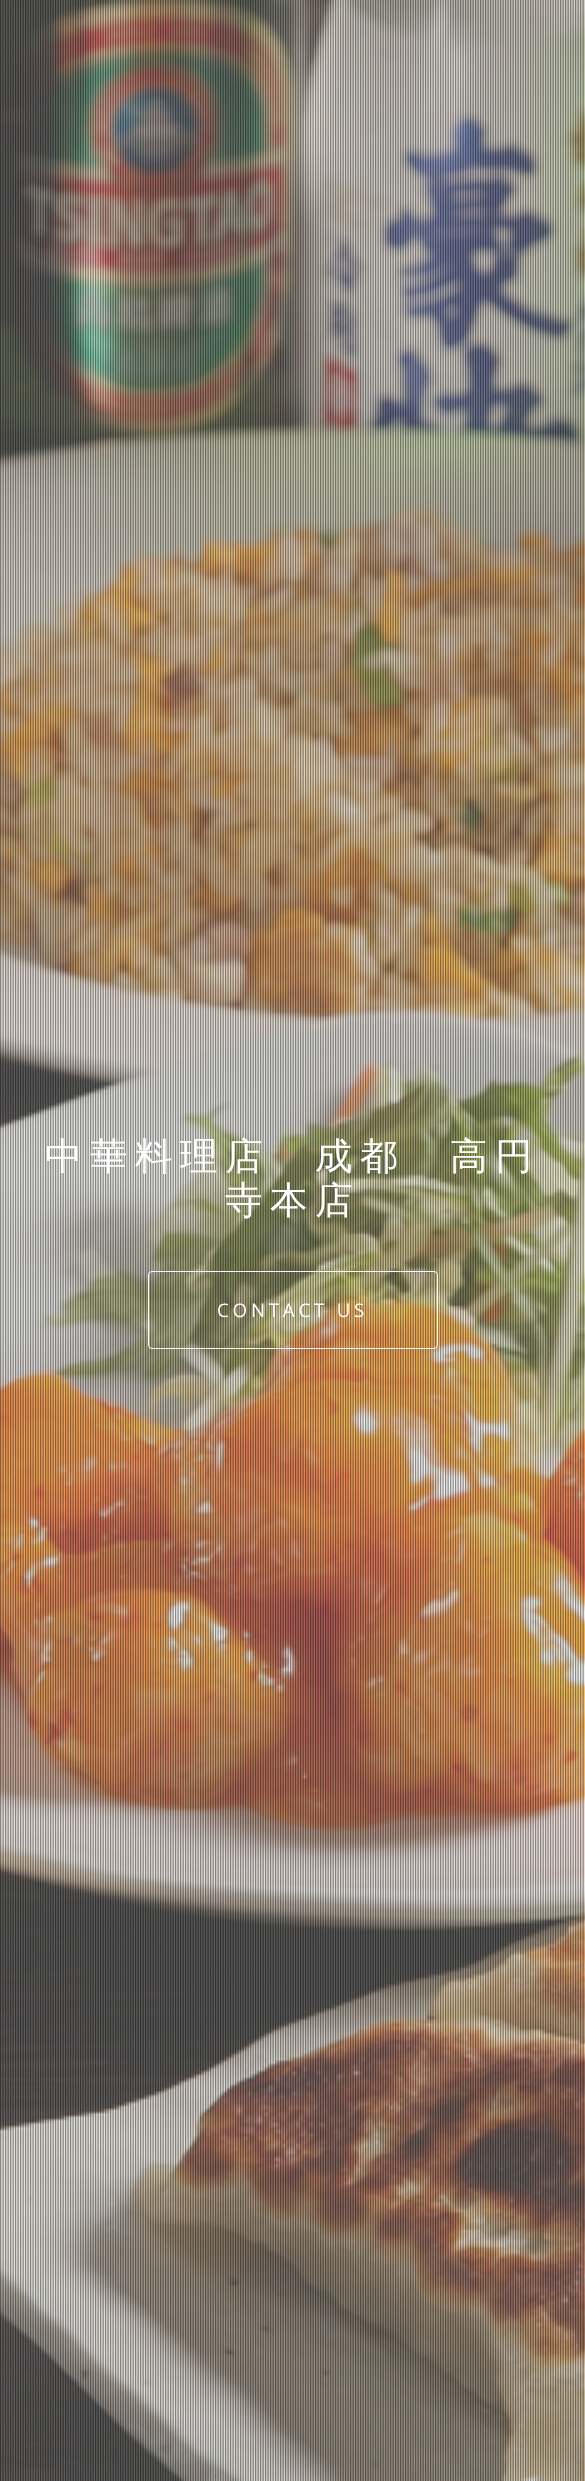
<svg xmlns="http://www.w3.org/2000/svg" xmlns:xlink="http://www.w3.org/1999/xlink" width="585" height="2481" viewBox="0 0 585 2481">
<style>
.cls-1{font:500 37.5px WenQuanYi Zen Hei;letter-spacing:7.5px;fill:#ffffff}
.cls-2{font:18.75px Open Sans;letter-spacing:3.75px;fill:#ffffff}
</style>
<rect width="100%" height="100%" fill="#ffffff"/>
<image xlink:href="image0.png" x="0" y="0" width="585" height="2481"/>
<image xlink:href="image1.png" x="0" y="0" width="585" height="2481"/>
<rect fill="none" stroke="#ffffff" x="148.5" y="1271.5" width="289" height="77" rx="3.5"/>
<text class="cls-1" x="45" y="1169">中華料理店　成都　高円</text>
<text class="cls-1" x="225" y="1213">寺本店</text>
<text class="cls-2" x="217" y="1317">CONTACT US</text>
</svg>
